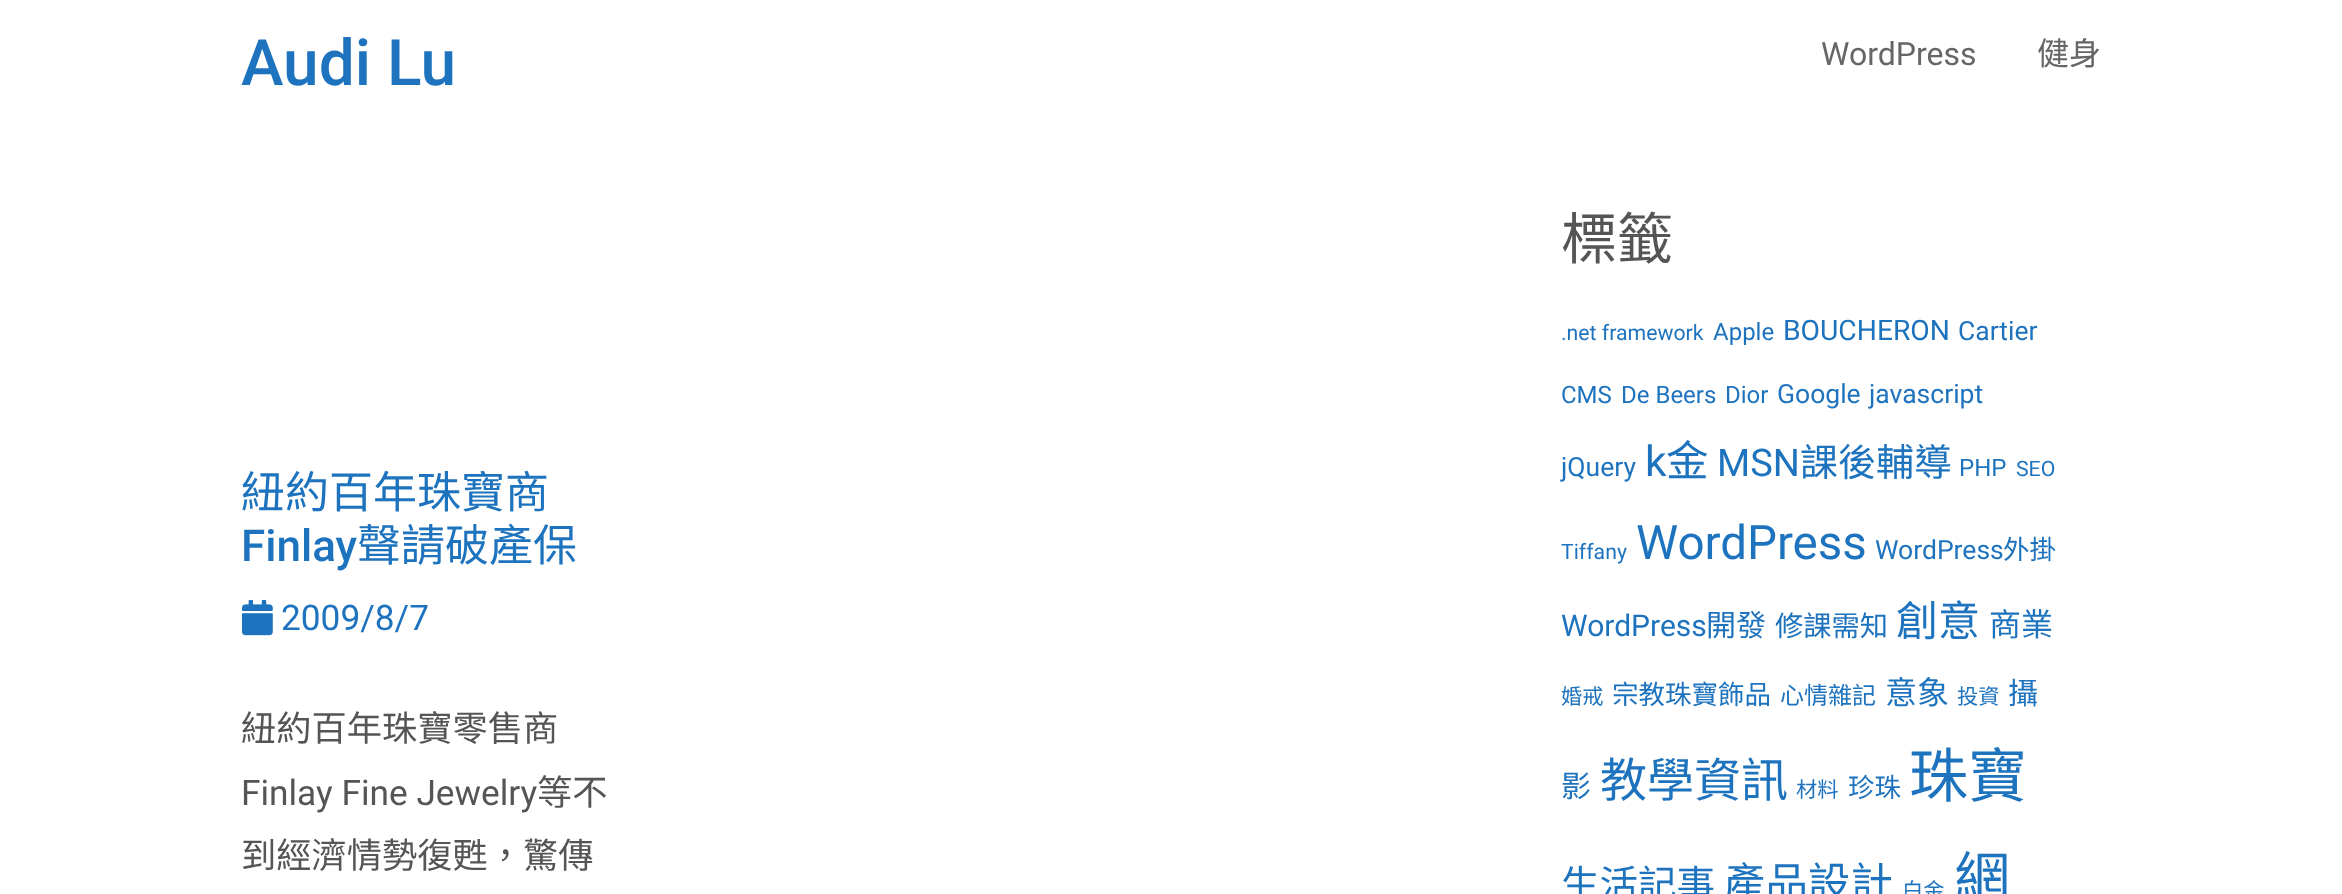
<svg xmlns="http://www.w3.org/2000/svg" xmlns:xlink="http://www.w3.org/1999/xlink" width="2342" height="894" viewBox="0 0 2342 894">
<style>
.cls-1{font:500 64px Roboto;fill:#1e73be}
.cls-2{font:32px Roboto;fill:#666666}
.cls-3{font:32px Noto Sans CJK TC;fill:#666666}
.cls-4{font:44px Noto Sans CJK TC;fill:#1e73be}
.cls-5{font:500 44px Roboto;fill:#1e73be}
.cls-6{font:35.25px Roboto;fill:#1e73be}
.cls-7{font:35.25px Noto Sans CJK TC;fill:#555555}
.cls-8{font:35.25px Roboto;fill:#555555}
.cls-9{font:56px Noto Sans CJK TC;fill:#555555}
.cls-10{font:21.25px Roboto;fill:#1e73be}
.cls-11{font:24px Roboto;fill:#1e73be}
.cls-12{font:28.25px Roboto;fill:#1e73be}
.cls-13{font:26.5px Roboto;fill:#1e73be}
.cls-14{font:42.5px Roboto;fill:#1e73be}
.cls-15{font:42.5px Noto Sans CJK TC;fill:#1e73be}
.cls-16{font:38px Roboto;fill:#1e73be}
.cls-17{font:38px Noto Sans CJK TC;fill:#1e73be}
.cls-18{font:47.5px Roboto;fill:#1e73be}
.cls-19{font:26.5px Noto Sans CJK TC;fill:#1e73be}
.cls-20{font:30px Roboto;fill:#1e73be}
.cls-21{font:30px Noto Sans CJK TC;fill:#1e73be}
.cls-22{font:28.25px Noto Sans CJK TC;fill:#1e73be}
.cls-23{font:42px Noto Sans CJK TC;fill:#1e73be}
.cls-24{font:32px Noto Sans CJK TC;fill:#1e73be}
.cls-25{font:21.25px Noto Sans CJK TC;fill:#1e73be}
.cls-26{font:24px Noto Sans CJK TC;fill:#1e73be}
.cls-27{font:47px Noto Sans CJK TC;fill:#1e73be}
.cls-28{font:59px Noto Sans CJK TC;fill:#1e73be}
.cls-29{font:38.5px Noto Sans CJK TC;fill:#1e73be}
.cls-30{font:56px Noto Sans CJK TC;fill:#1e73be}
</style>
<rect width="100%" height="100%" fill="#ffffff"/>
<image xlink:href="image0.png" x="242" y="600" width="31" height="36"/>
<text class="cls-1" x="241" y="85">Audi Lu</text>
<text class="cls-2" x="1821" y="65">WordPress</text>
<text class="cls-3" x="2037" y="65">健身</text>
<text class="cls-4" x="241" y="508">紐約百年珠寶商</text>
<text class="cls-5" x="241" y="561">Finlay</text>
<text class="cls-4" x="357" y="561">聲請破產保</text>
<text class="cls-6" x="281" y="630">2009/8/7</text>
<text class="cls-7" x="241" y="741">紐約百年珠寶零售商</text>
<text class="cls-8" x="241" y="805">Finlay Fine Jewelry</text>
<text class="cls-7" x="537" y="805">等不</text>
<text class="cls-7" x="241" y="868">到經濟情勢復甦，驚傳</text>
<text class="cls-9" x="1561" y="259">標籤</text>
<text class="cls-10" x="1561" y="340">.net framework</text>
<text class="cls-11" x="1713" y="340">Apple</text>
<text class="cls-12" x="1783" y="340">BOUCHERON</text>
<text class="cls-13" x="1958" y="340">Cartier</text>
<text class="cls-11" x="1561" y="403">CMS</text>
<text class="cls-11" x="1621" y="403">De Beers</text>
<text class="cls-11" x="1725" y="403">Dior</text>
<text class="cls-13" x="1777" y="403">Google</text>
<text class="cls-13" x="1869" y="403">javascript</text>
<text class="cls-13" x="1561" y="476">jQuery</text>
<text class="cls-14" x="1645" y="476">k</text>
<text class="cls-15" x="1666" y="476">金</text>
<text class="cls-16" x="1717" y="476">MSN</text>
<text class="cls-17" x="1800" y="476">課後輔導</text>
<text class="cls-11" x="1959" y="476">PHP</text>
<text class="cls-10" x="2016" y="476">SEO</text>
<text class="cls-10" x="1561" y="559">Tiffany</text>
<text class="cls-18" x="1636" y="559">WordPress</text>
<text class="cls-13" x="1875" y="559">WordPress</text>
<text class="cls-19" x="2003" y="559">外掛</text>
<text class="cls-20" x="1561" y="636">WordPress</text>
<text class="cls-21" x="1706" y="636">開發</text>
<text class="cls-22" x="1775" y="636">修課需知</text>
<text class="cls-23" x="1896" y="636">創意</text>
<text class="cls-24" x="1989" y="636">商業</text>
<text class="cls-25" x="1561" y="704">婚戒</text>
<text class="cls-19" x="1612" y="704">宗教珠寶飾品</text>
<text class="cls-26" x="1780" y="704">心情雜記</text>
<text class="cls-24" x="1885" y="704">意象</text>
<text class="cls-25" x="1957" y="704">投資</text>
<text class="cls-21" x="2008" y="704">攝</text>
<text class="cls-21" x="1561" y="797">影</text>
<text class="cls-27" x="1600" y="797">教學資訊</text>
<text class="cls-25" x="1796" y="797">材料</text>
<text class="cls-19" x="1848" y="797">珍珠</text>
<text class="cls-28" x="1909" y="797">珠寶</text>
<text class="cls-29" x="1561" y="898">生活記事</text>
<text class="cls-15" x="1723" y="898">產品設計</text>
<text class="cls-25" x="1902" y="898">白金</text>
<text class="cls-30" x="1954" y="898">網</text>
</svg>
